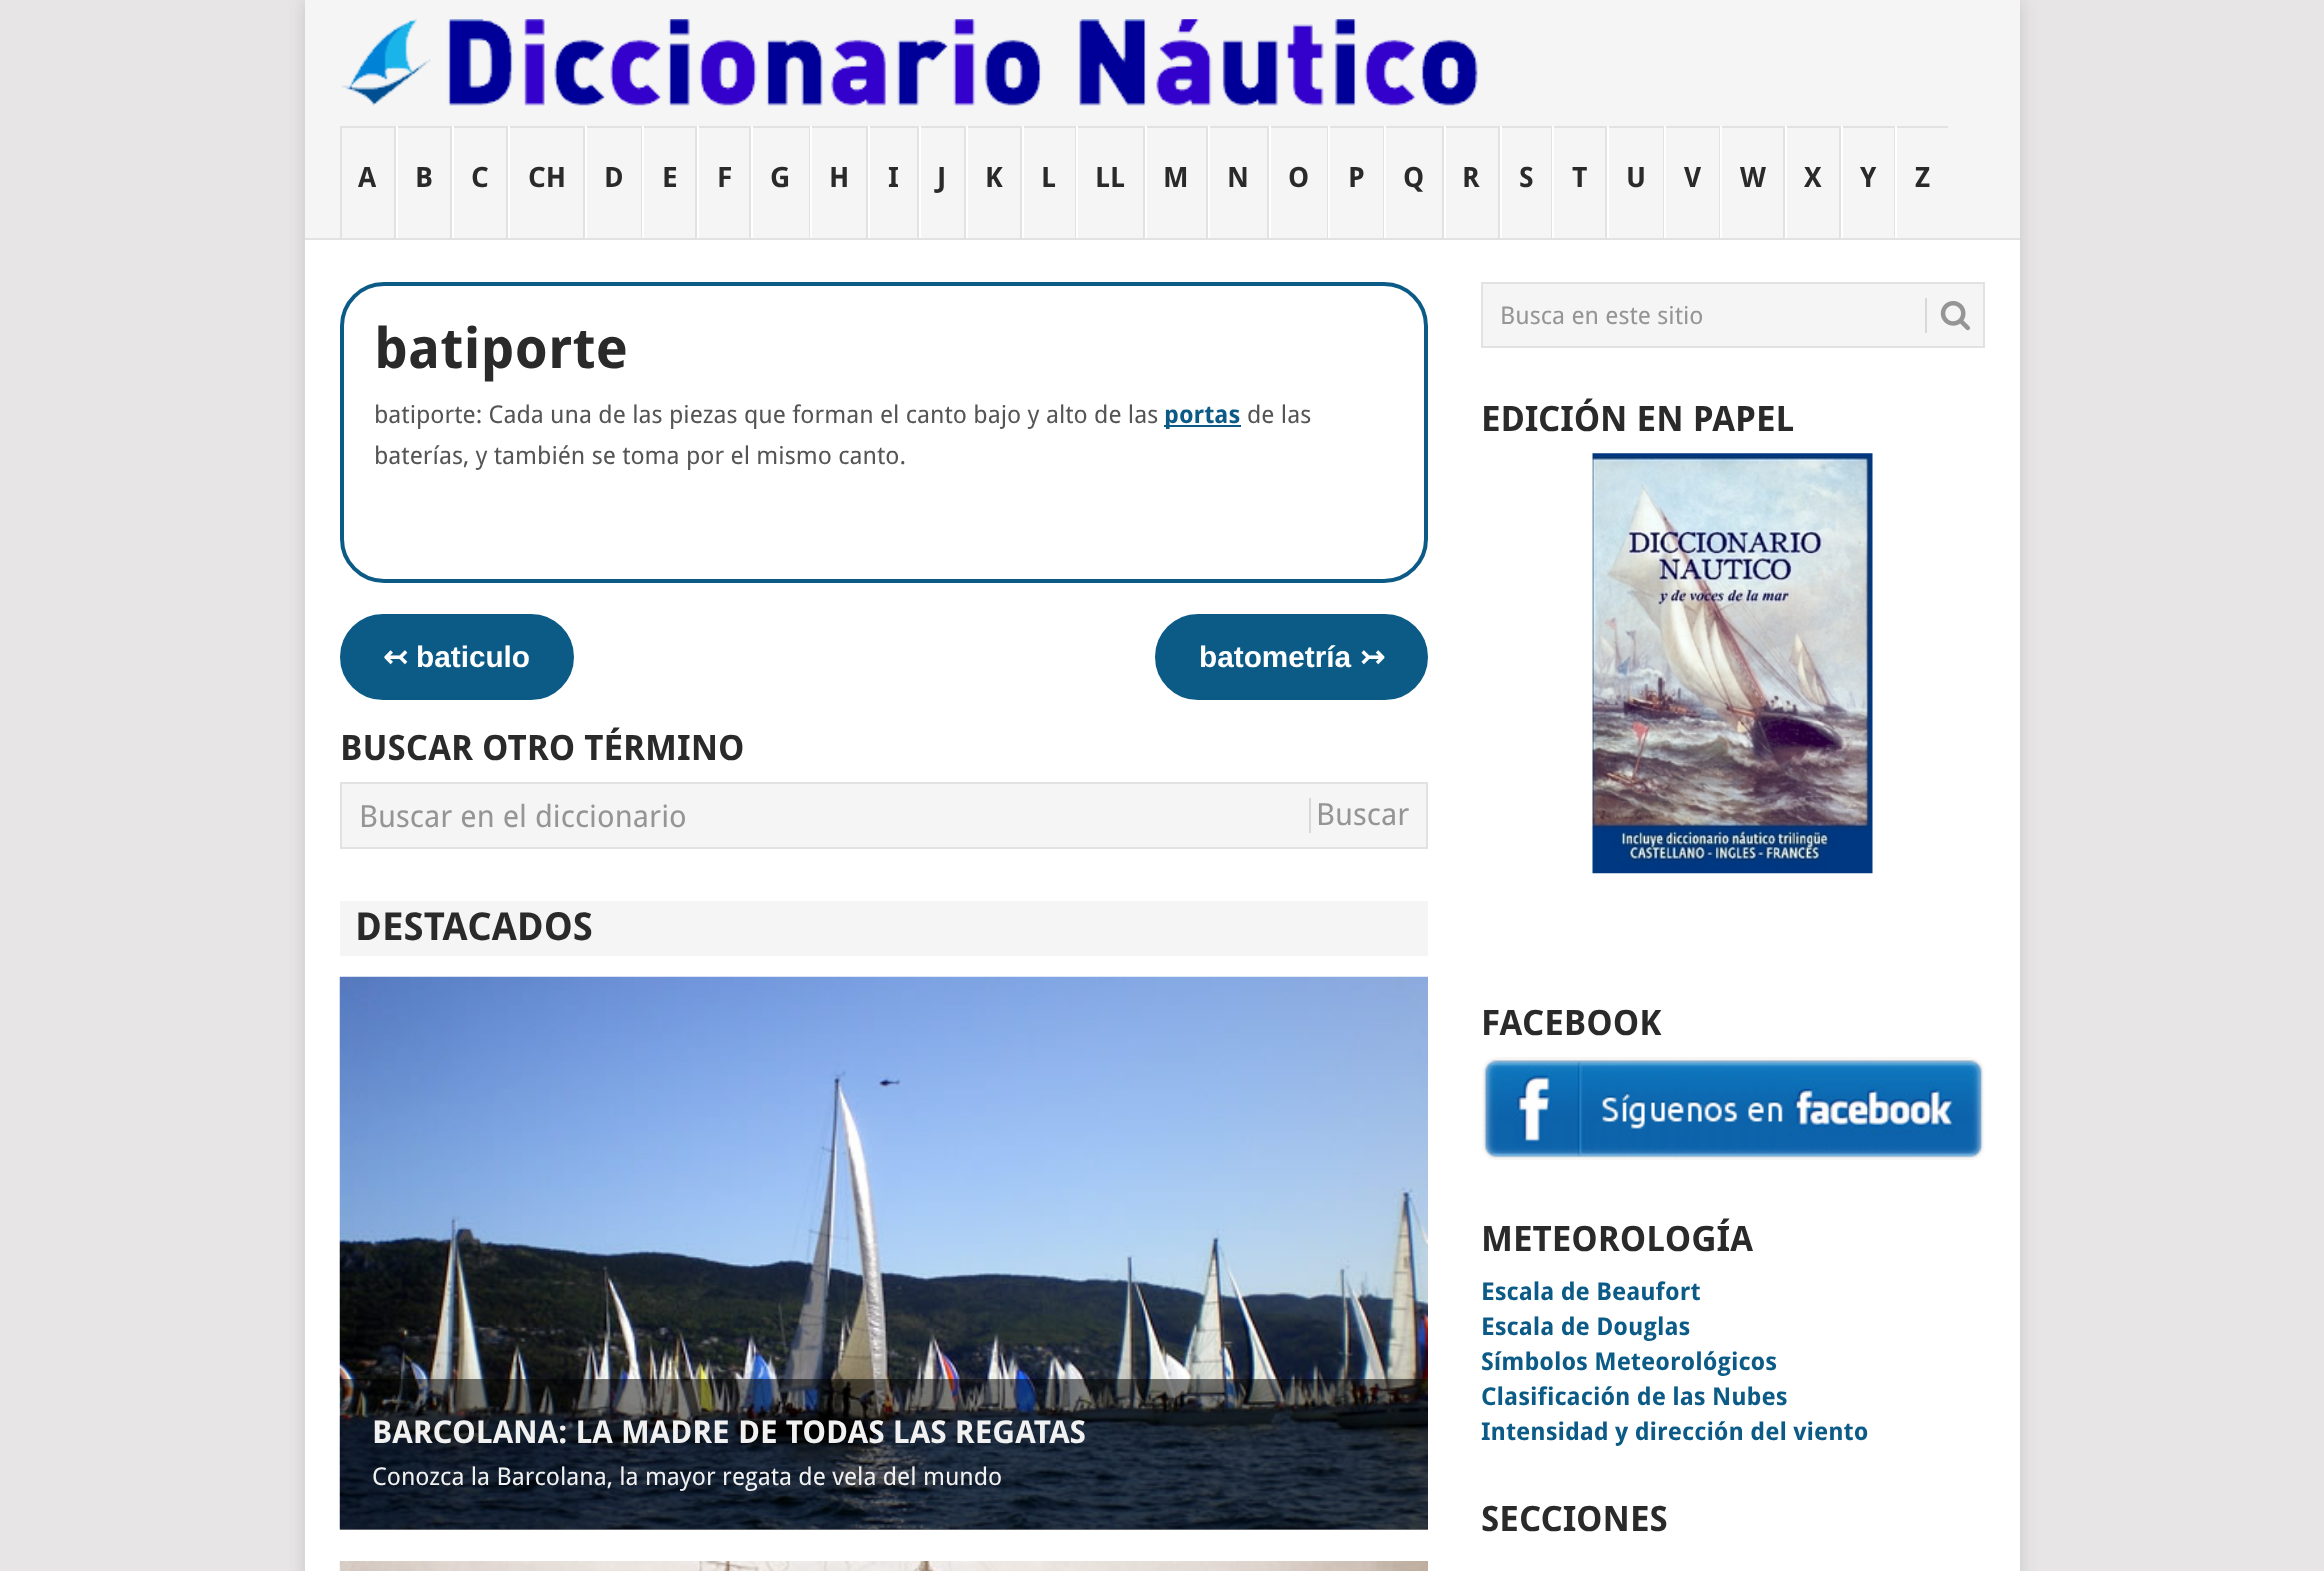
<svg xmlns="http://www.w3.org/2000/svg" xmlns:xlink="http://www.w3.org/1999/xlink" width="2324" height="1571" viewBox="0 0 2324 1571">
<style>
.cls-1{font:bold 28px Droid Sans;fill:#2a2a2a}
.cls-2{font:bold 56px Droid Sans;fill:#2a2a2a}
.cls-3{font:24.5px Droid Sans;fill:#555555}
.cls-4{font:bold 24.5px Droid Sans;fill:#0c5b87}
.cls-5{font:bold 29.75px DejaVu Sans;fill:#ffffff}
.cls-6{font:bold 29.75px Liberation Sans;fill:#ffffff}
.cls-7{font:bold 35px Droid Sans;fill:#2a2a2a}
.cls-8{font:30.6px Droid Sans;fill:#959595}
.cls-9{font:bold 38.5px Droid Sans;fill:#2a2a2a}
.cls-10{font:bold 31.5px Droid Sans;fill:#f1f1f1}
.cls-11{font:24.5px Droid Sans;fill:#f1f1f1}
.cls-12{font:24.5px Droid Sans;fill:#959595}
</style>
<rect width="100%" height="100%" fill="#e7e5e6"/>
<rect fill="#323232" fill-opacity="0.17" filter="blur(9px)" x="305" y="0" width="1715" height="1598"/>
<rect fill="#ffffff" x="305" y="240" width="1715" height="1331"/>
<rect fill="#f5f5f5" x="305" y="0" width="1715" height="238"/>
<image xlink:href="image0.png" x="341" y="19" width="1137" height="87"/>
<rect fill="#e2e2e2" x="340" y="126" width="1608" height="2"/>
<rect fill="#e2e2e2" x="394" y="126" width="2" height="114"/>
<rect fill="#e2e2e2" x="340" y="126" width="2" height="114"/>
<rect fill="#e2e2e2" x="450" y="126" width="2" height="114"/>
<rect fill="#ffffff" x="396" y="126" width="2" height="114"/>
<rect fill="#e2e2e2" x="506" y="126" width="2" height="114"/>
<rect fill="#ffffff" x="452" y="126" width="2" height="114"/>
<rect fill="#e2e2e2" x="583" y="126" width="2" height="114"/>
<rect fill="#ffffff" x="508" y="126" width="2" height="114"/>
<rect fill="#e2e2e2" x="641" y="126" width="1" height="114"/>
<rect fill="#ffffff" x="585" y="126" width="2" height="114"/>
<rect fill="#e2e2e2" x="695" y="126" width="2" height="114"/>
<rect fill="#ffffff" x="642" y="126" width="2" height="114"/>
<rect fill="#e2e2e2" x="749" y="126" width="2" height="114"/>
<rect fill="#ffffff" x="697" y="126" width="2" height="114"/>
<rect fill="#e2e2e2" x="809" y="126" width="1" height="114"/>
<rect fill="#ffffff" x="751" y="126" width="2" height="114"/>
<rect fill="#e2e2e2" x="866" y="126" width="2" height="114"/>
<rect fill="#ffffff" x="810" y="126" width="2" height="114"/>
<rect fill="#e2e2e2" x="917" y="126" width="2" height="114"/>
<rect fill="#ffffff" x="868" y="126" width="2" height="114"/>
<rect fill="#e2e2e2" x="964" y="126" width="2" height="114"/>
<rect fill="#ffffff" x="919" y="126" width="2" height="114"/>
<rect fill="#e2e2e2" x="1020" y="126" width="2" height="114"/>
<rect fill="#ffffff" x="966" y="126" width="2" height="114"/>
<rect fill="#e2e2e2" x="1075" y="126" width="1" height="114"/>
<rect fill="#ffffff" x="1022" y="126" width="2" height="114"/>
<rect fill="#e2e2e2" x="1143" y="126" width="2" height="114"/>
<rect fill="#ffffff" x="1076" y="126" width="2" height="114"/>
<rect fill="#e2e2e2" x="1206" y="126" width="2" height="114"/>
<rect fill="#ffffff" x="1145" y="126" width="2" height="114"/>
<rect fill="#e2e2e2" x="1267" y="126" width="2" height="114"/>
<rect fill="#ffffff" x="1208" y="126" width="2" height="114"/>
<rect fill="#e2e2e2" x="1327" y="126" width="1" height="114"/>
<rect fill="#ffffff" x="1269" y="126" width="2" height="114"/>
<rect fill="#e2e2e2" x="1383" y="126" width="1" height="114"/>
<rect fill="#ffffff" x="1328" y="126" width="2" height="114"/>
<rect fill="#e2e2e2" x="1442" y="126" width="2" height="114"/>
<rect fill="#ffffff" x="1384" y="126" width="2" height="114"/>
<rect fill="#e2e2e2" x="1498" y="126" width="2" height="114"/>
<rect fill="#ffffff" x="1444" y="126" width="2" height="114"/>
<rect fill="#e2e2e2" x="1551" y="126" width="1" height="114"/>
<rect fill="#ffffff" x="1500" y="126" width="2" height="114"/>
<rect fill="#e2e2e2" x="1605" y="126" width="2" height="114"/>
<rect fill="#ffffff" x="1552" y="126" width="2" height="114"/>
<rect fill="#e2e2e2" x="1663" y="126" width="1" height="114"/>
<rect fill="#ffffff" x="1607" y="126" width="2" height="114"/>
<rect fill="#e2e2e2" x="1719" y="126" width="1" height="114"/>
<rect fill="#ffffff" x="1664" y="126" width="2" height="114"/>
<rect fill="#e2e2e2" x="1783" y="126" width="2" height="114"/>
<rect fill="#ffffff" x="1720" y="126" width="2" height="114"/>
<rect fill="#e2e2e2" x="1839" y="126" width="2" height="114"/>
<rect fill="#ffffff" x="1785" y="126" width="2" height="114"/>
<rect fill="#e2e2e2" x="1894" y="126" width="1" height="114"/>
<rect fill="#ffffff" x="1841" y="126" width="2" height="114"/>
<rect fill="#ffffff" x="1895" y="126" width="2" height="114"/>
<rect fill="#e2e2e2" x="305" y="238" width="1715" height="2"/>
<rect fill="none" stroke="#0c5b87" stroke-width="4" x="342" y="284" width="1084" height="297" rx="42"/>
<rect fill="#0c5b87" x="1164" y="425" width="77" height="2"/>
<rect fill="#0c5b87" stroke="#0c5b87" stroke-width="2" x="341" y="615" width="232" height="84" rx="42"/>
<rect fill="#0c5b87" stroke="#0c5b87" stroke-width="2" x="1156" y="615" width="271" height="84" rx="42"/>
<rect fill="#f5f5f5" stroke="#e2e2e2" stroke-width="2" x="341" y="783" width="1086" height="65"/>
<rect fill="#d8d8d8" x="1309" y="798" width="2" height="35"/>
<rect fill="#f5f5f5" x="340" y="901" width="1088" height="55"/>
<image xlink:href="image1.png" x="339" y="976" width="1089" height="554"/>
<rect fill="#000000" fill-opacity="0.5" x="340" y="1379" width="1088" height="151"/>
<image xlink:href="image2.png" x="339" y="1561" width="1089" height="10"/>
<rect fill="#f5f5f5" stroke="#e2e2e2" stroke-width="2" x="1482" y="283" width="502" height="64"/>
<rect fill="#d8d8d8" x="1925" y="298" width="2" height="35"/>
<image xlink:href="image3.png" x="1940" y="301" width="30" height="30"/>
<image xlink:href="image4.png" x="1592" y="453" width="281" height="421"/>
<image xlink:href="image5.png" x="1482" y="1057" width="503" height="103"/>
<text class="cls-1" x="358" y="187">A</text>
<text class="cls-1" x="415" y="187">B</text>
<text class="cls-1" x="471" y="187">C</text>
<text class="cls-1" x="528" y="187">CH</text>
<text class="cls-1" x="604" y="187">D</text>
<text class="cls-1" x="662" y="187">E</text>
<text class="cls-1" x="717" y="187">F</text>
<text class="cls-1" x="770" y="187">G</text>
<text class="cls-1" x="829" y="187">H</text>
<text class="cls-1" x="888" y="187">I</text>
<text class="cls-1" x="937" y="187">J</text>
<text class="cls-1" x="985" y="187">K</text>
<text class="cls-1" x="1041" y="187">L</text>
<text class="cls-1" x="1095" y="187">LL</text>
<text class="cls-1" x="1163" y="187">M</text>
<text class="cls-1" x="1227" y="187">N</text>
<text class="cls-1" x="1288" y="187">O</text>
<text class="cls-1" x="1348" y="187">P</text>
<text class="cls-1" x="1403" y="187">Q</text>
<text class="cls-1" x="1462" y="187">R</text>
<text class="cls-1" x="1519" y="187">S</text>
<text class="cls-1" x="1572" y="187">T</text>
<text class="cls-1" x="1626" y="187">U</text>
<text class="cls-1" x="1684" y="187">V</text>
<text class="cls-1" x="1740" y="187">W</text>
<text class="cls-1" x="1804" y="187">X</text>
<text class="cls-1" x="1860" y="187">Y</text>
<text class="cls-1" x="1915" y="187">Z</text>
<text class="cls-2" x="374" y="368">batiporte</text>
<text class="cls-3" x="374" y="423">batiporte: Cada una de las piezas que forman el canto bajo y alto de las</text>
<text class="cls-4" x="1164" y="423">portas</text>
<text class="cls-3" x="1247" y="423">de las</text>
<text class="cls-3" x="374" y="464">baterías, y también se toma por el mismo canto.</text>
<text class="cls-5" x="383" y="667">↢</text>
<text class="cls-6" x="416" y="667">baticulo</text>
<text class="cls-6" x="1199" y="667">batometría</text>
<text class="cls-5" x="1360" y="667">↣</text>
<text class="cls-7" x="340" y="760">BUSCAR OTRO TÉRMINO</text>
<text class="cls-8" x="359" y="827">Buscar en el diccionario</text>
<text class="cls-8" x="1316" y="825">Buscar</text>
<text class="cls-9" x="355" y="940">DESTACADOS</text>
<text class="cls-10" x="372" y="1443">BARCOLANA: LA MADRE DE TODAS LAS REGATAS</text>
<text class="cls-11" x="372" y="1485">Conozca la Barcolana, la mayor regata de vela del mundo</text>
<text class="cls-12" x="1500" y="324">Busca en este sitio</text>
<text class="cls-7" x="1481" y="431">EDICIÓN EN PAPEL</text>
<text class="cls-7" x="1481" y="1035">FACEBOOK</text>
<text class="cls-7" x="1481" y="1251">METEOROLOGÍA</text>
<text class="cls-4"><tspan x="1481" y="1300">Escala de Beaufort</tspan><tspan x="1481" y="1335">Escala de Douglas</tspan><tspan x="1481" y="1370">Símbolos Meteorológicos</tspan><tspan x="1481" y="1405">Clasificación de las Nubes</tspan><tspan x="1481" y="1440">Intensidad y dirección del viento</tspan></text>
<text class="cls-7" x="1481" y="1531">SECCIONES</text>
</svg>
